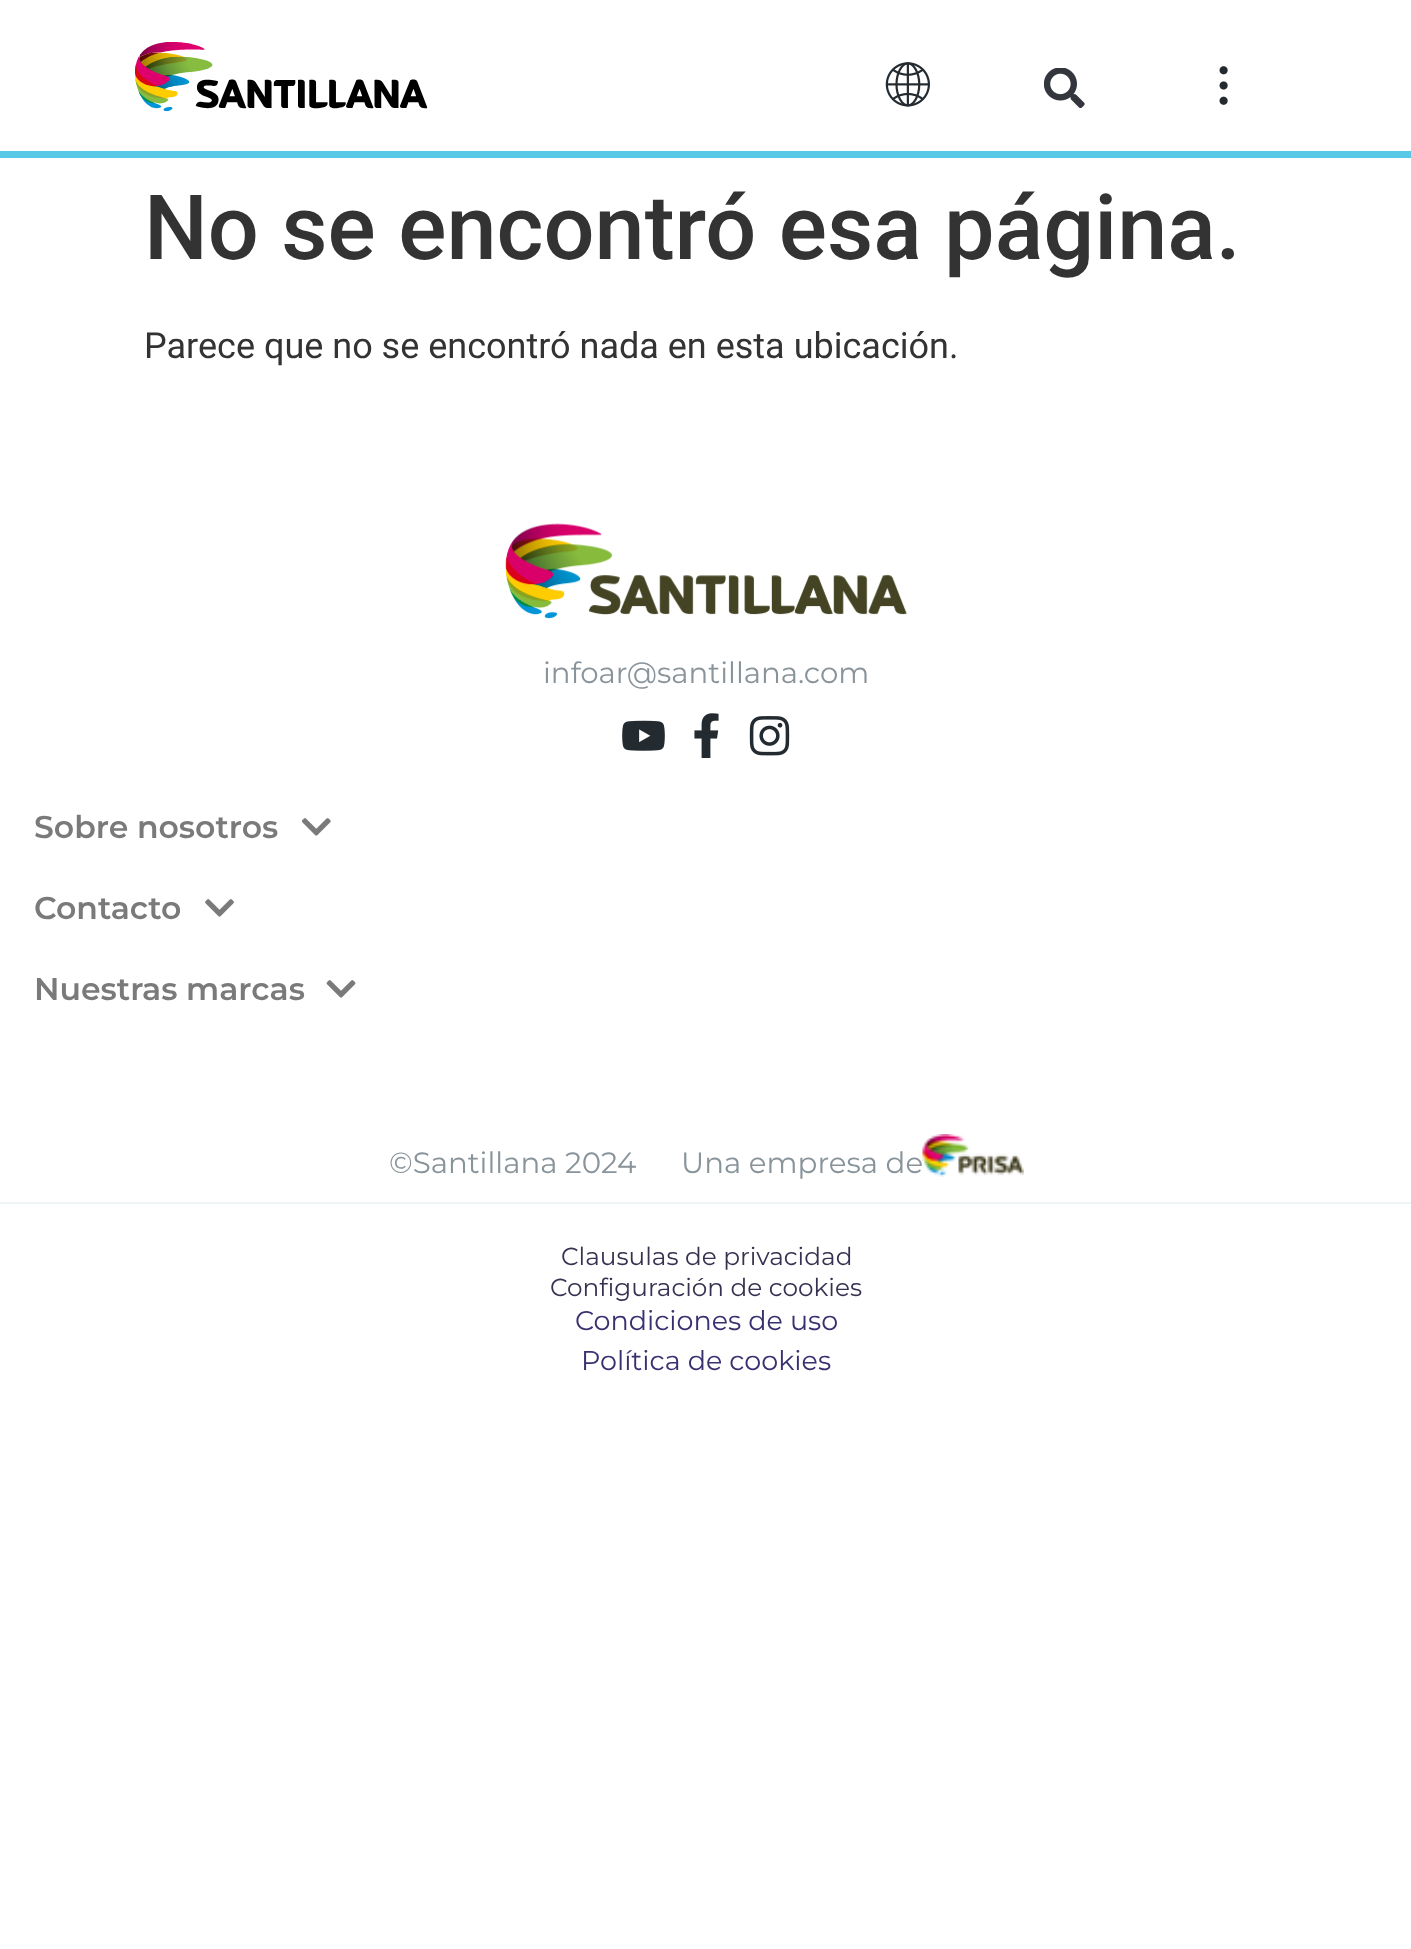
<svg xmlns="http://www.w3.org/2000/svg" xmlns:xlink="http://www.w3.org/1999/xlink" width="1411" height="1949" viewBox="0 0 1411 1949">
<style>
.cls-1{font:500 90px Roboto;fill:#333333}
.cls-2{font:36px Roboto;fill:#333333}
.cls-3{font:29.25px Montserrat;fill:#88939a}
.cls-4{font:600 31.5px Montserrat;fill:#7a7a7a}
.cls-5{font:24.75px Montserrat;fill:#363150}
.cls-6{font:27px Montserrat;fill:#383170}
</style>
<rect width="100%" height="100%" fill="#ffffff"/>
<rect fill="#59c9e7" x="0" y="151" width="1411" height="7"/>
<image xlink:href="image0.png" x="135" y="42" width="293" height="70"/>
<image xlink:href="image1.png" x="885" y="62" width="45" height="45"/>
<image xlink:href="image2.png" x="1044" y="68" width="41" height="40"/>
<image xlink:href="image3.png" x="1219" y="66" width="9" height="39"/>
<image xlink:href="image4.png" x="505" y="523" width="402" height="96"/>
<image xlink:href="image5.png" x="622" y="720" width="43" height="31"/>
<image xlink:href="image6.png" x="694" y="713" width="25" height="45"/>
<image xlink:href="image7.png" x="749" y="716" width="41" height="40"/>
<image xlink:href="image8.png" x="302" y="818" width="29" height="18"/>
<image xlink:href="image9.png" x="205" y="899" width="29" height="18"/>
<image xlink:href="image10.png" x="326" y="980" width="30" height="18"/>
<image xlink:href="image11.png" x="922" y="1134" width="102" height="43"/>
<rect fill="#eff5f7" x="0" y="1202" width="1411" height="2"/>
<text class="cls-1" x="144" y="259">No se encontró esa página.</text>
<text class="cls-2" x="144" y="358">Parece que no se encontró nada en esta ubicación.</text>
<text class="cls-3" x="543" y="683">infoar@santillana.com</text>
<text class="cls-4" x="34" y="838">Sobre nosotros</text>
<text class="cls-4" x="34" y="919">Contacto</text>
<text class="cls-4" x="34" y="1000">Nuestras marcas</text>
<text class="cls-3" x="389" y="1173">©Santillana 2024</text>
<text class="cls-3" x="681" y="1173">Una empresa de</text>
<text class="cls-5" x="561" y="1265">Clausulas de privacidad</text>
<text class="cls-5" x="550" y="1296">Configuración de cookies</text>
<text class="cls-6" x="575" y="1330">Condiciones de uso</text>
<text class="cls-6" x="581" y="1370">Política de cookies</text>
</svg>
